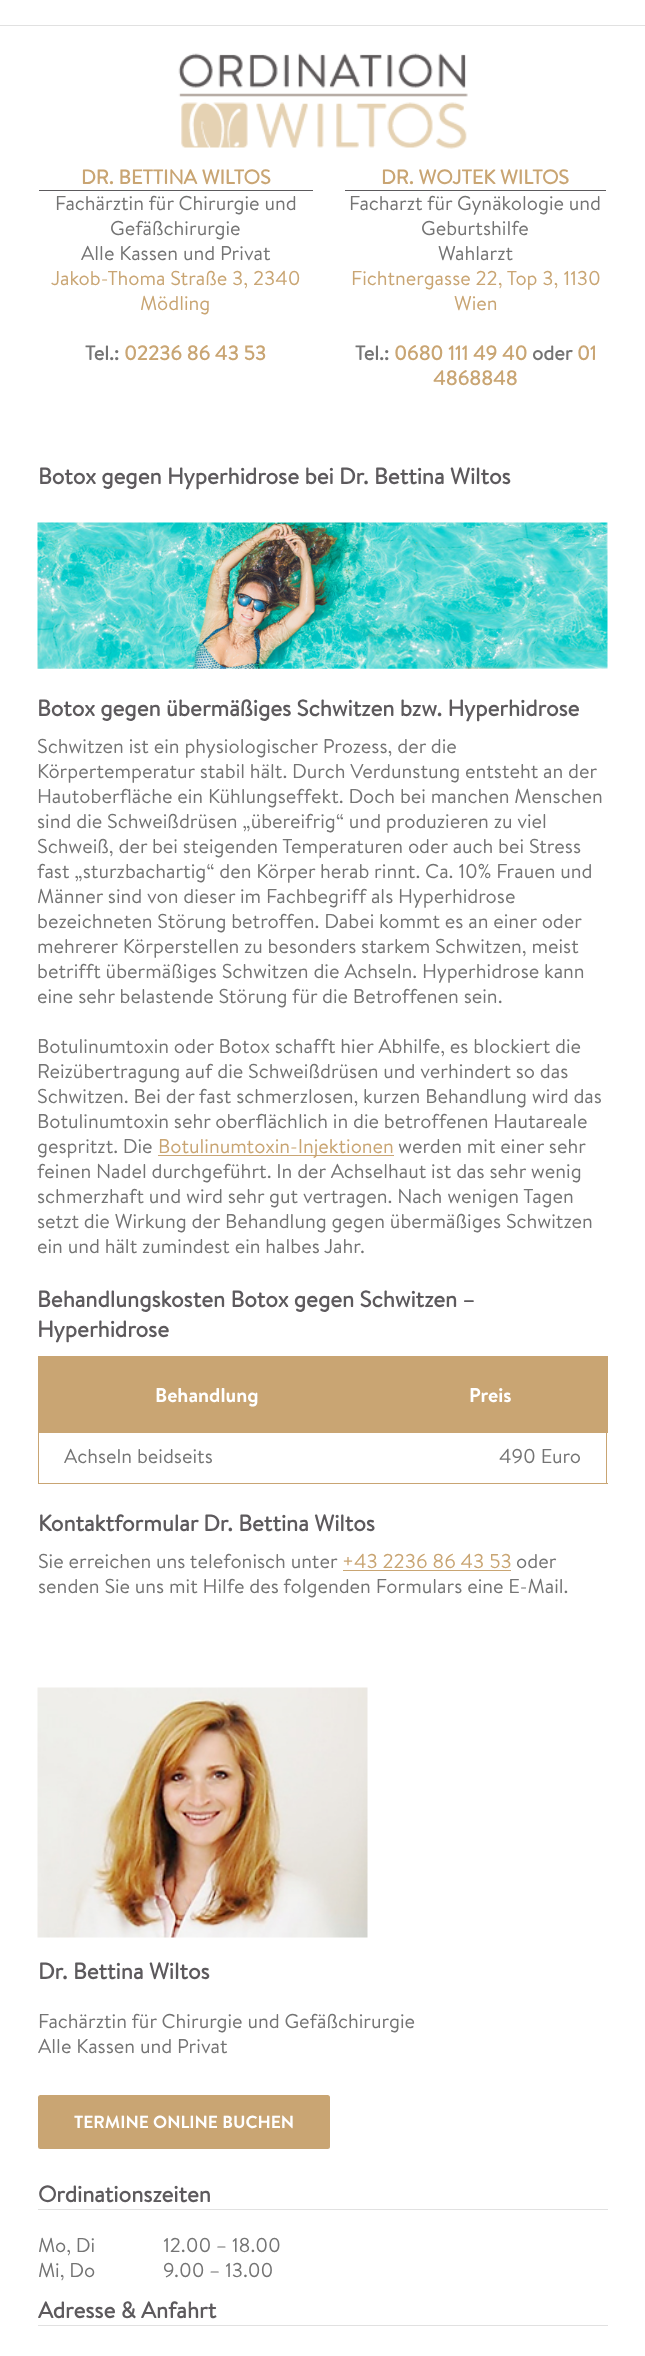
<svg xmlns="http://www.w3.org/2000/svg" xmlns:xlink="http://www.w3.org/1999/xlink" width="645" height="2356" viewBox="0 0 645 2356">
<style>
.cls-1{font:bold 20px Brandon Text;fill:#c9a573}
.cls-2{font:20px Brandon Text;fill:#747474}
.cls-3{font:20px Brandon Text;fill:#c9a573}
.cls-4{font:bold 20px Brandon Text;fill:#747474}
.cls-5{font:bold 22.5px Brandon Text;fill:#5d5a5d}
.cls-6{font:bold 20px 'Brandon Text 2';fill:#ffffff}
.cls-7{font:bold 17.5px 'Brandon Text 2';fill:#ffffff}
</style>
<rect width="100%" height="100%" fill="#ffffff"/>
<rect fill="#e1e1e1" x="0" y="25" width="645" height="1"/>
<image xlink:href="image0.png" x="178" y="53" width="290" height="96"/>
<rect fill="#5c5a5d" x="39" y="190" width="274" height="1"/>
<rect fill="#5c5a5d" x="345" y="190" width="261" height="1"/>
<image xlink:href="image1.png" x="37" y="522" width="571" height="147"/>
<rect fill="#c9a573" x="158" y="1155" width="236" height="1"/>
<rect fill="#c9a573" x="606" y="1433" width="1" height="51"/>
<rect fill="#c9a573" x="38" y="1483" width="570" height="1"/>
<rect fill="#c9a573" x="38" y="1356" width="1" height="128"/>
<rect fill="#c9a573" x="39" y="1356" width="569" height="77"/>
<rect fill="#c9a573" x="343" y="1570" width="168" height="1"/>
<image xlink:href="image2.png" x="37" y="1687" width="331" height="251"/>
<rect fill="#c9a573" x="38" y="2095" width="292" height="54" rx="2.5"/>
<rect fill="#e1e1e1" x="38" y="2209" width="570" height="1"/>
<rect fill="#e1e1e1" x="38" y="2325" width="570" height="1"/>
<text class="cls-1" x="81" y="184">DR. BETTINA WILTOS</text>
<text class="cls-2" x="55" y="210">Fachärztin für Chirurgie und</text>
<text class="cls-2" x="110" y="235">Gefäßchirurgie</text>
<text class="cls-2" x="81" y="260">Alle Kassen und Privat</text>
<text class="cls-3" x="51" y="285">Jakob-Thoma Straße 3, 2340</text>
<text class="cls-3" x="140" y="310">Mödling</text>
<text class="cls-4" x="85" y="360">Tel.:</text>
<text class="cls-1" x="124" y="360">02236 86 43 53</text>
<text class="cls-1" x="381" y="184">DR. WOJTEK WILTOS</text>
<text class="cls-2" x="349" y="210">Facharzt für Gynäkologie und</text>
<text class="cls-2" x="421" y="235">Geburtshilfe</text>
<text class="cls-2" x="438" y="260">Wahlarzt</text>
<text class="cls-3" x="351" y="285">Fichtnergasse 22, Top 3, 1130</text>
<text class="cls-3" x="454" y="310">Wien</text>
<text class="cls-4" x="355" y="360">Tel.:</text>
<text class="cls-1" x="394" y="360">0680 111 49 40</text>
<text class="cls-4" x="532" y="360">oder</text>
<text class="cls-1" x="577" y="360">01</text>
<text class="cls-1" x="433" y="385">4868848</text>
<text class="cls-5" x="38" y="484">Botox gegen Hyperhidrose bei Dr. Bettina Wiltos</text>
<text class="cls-5" x="37" y="716">Botox gegen übermäßiges Schwitzen bzw. Hyperhidrose</text>
<text class="cls-2"><tspan x="37" y="753">Schwitzen ist ein physiologischer Prozess, der die</tspan><tspan x="37" y="778">Körpertemperatur stabil hält. Durch Verdunstung entsteht an der</tspan><tspan x="37" y="803">Hautoberfläche ein Kühlungseffekt. Doch bei manchen Menschen</tspan><tspan x="37" y="828">sind die Schweißdrüsen „übereifrig“ und produzieren zu viel</tspan><tspan x="37" y="853">Schweiß, der bei steigenden Temperaturen oder auch bei Stress</tspan><tspan x="37" y="878">fast „sturzbachartig“ den Körper herab rinnt. Ca. 10% Frauen und</tspan><tspan x="37" y="903">Männer sind von dieser im Fachbegriff als Hyperhidrose</tspan><tspan x="37" y="928">bezeichneten Störung betroffen. Dabei kommt es an einer oder</tspan><tspan x="37" y="953">mehrerer Körperstellen zu besonders starkem Schwitzen, meist</tspan><tspan x="37" y="978">betrifft übermäßiges Schwitzen die Achseln. Hyperhidrose kann</tspan><tspan x="37" y="1003">eine sehr belastende Störung für die Betroffenen sein.</tspan></text>
<text class="cls-2"><tspan x="37" y="1053">Botulinumtoxin oder Botox schafft hier Abhilfe, es blockiert die</tspan><tspan x="37" y="1078">Reizübertragung auf die Schweißdrüsen und verhindert so das</tspan><tspan x="37" y="1103">Schwitzen. Bei der fast schmerzlosen, kurzen Behandlung wird das</tspan><tspan x="37" y="1128">Botulinumtoxin sehr oberflächlich in die betroffenen Hautareale</tspan><tspan x="37" y="1153">gespritzt. Die</tspan></text>
<text class="cls-3" x="158" y="1153">Botulinumtoxin-Injektionen</text>
<text class="cls-2" x="398" y="1153">werden mit einer sehr</text>
<text class="cls-2"><tspan x="37" y="1178">feinen Nadel durchgeführt. In der Achselhaut ist das sehr wenig</tspan><tspan x="37" y="1203">schmerzhaft und wird sehr gut vertragen. Nach wenigen Tagen</tspan><tspan x="37" y="1228">setzt die Wirkung der Behandlung gegen übermäßiges Schwitzen</tspan><tspan x="37" y="1253">ein und hält zumindest ein halbes Jahr.</tspan></text>
<text class="cls-5"><tspan x="37" y="1307">Behandlungskosten Botox gegen Schwitzen –</tspan><tspan x="37" y="1337">Hyperhidrose</tspan></text>
<text class="cls-6" x="155" y="1402">Behandlung</text>
<text class="cls-6" x="469" y="1402">Preis</text>
<text class="cls-2" x="64" y="1463">Achseln beidseits</text>
<text class="cls-2" x="499" y="1463">490 Euro</text>
<text class="cls-5" x="38" y="1531">Kontaktformular Dr. Bettina Wiltos</text>
<text class="cls-2" x="38" y="1568">Sie erreichen uns telefonisch unter</text>
<text class="cls-3" x="342" y="1568">+43 2236 86 43 53</text>
<text class="cls-2" x="516" y="1568">oder</text>
<text class="cls-2" x="38" y="1593">senden Sie uns mit Hilfe des folgenden Formulars eine E-Mail.</text>
<text class="cls-5" x="38" y="1979">Dr. Bettina Wiltos</text>
<text class="cls-2"><tspan x="38" y="2028">Fachärztin für Chirurgie und Gefäßchirurgie</tspan><tspan x="38" y="2053">Alle Kassen und Privat</tspan></text>
<text class="cls-7" x="74" y="2128">TERMINE ONLINE BUCHEN</text>
<text class="cls-5" x="38" y="2202">Ordinationszeiten</text>
<text class="cls-2" x="38" y="2252">Mo, Di</text>
<text class="cls-2" x="163" y="2252">12.00 – 18.00</text>
<text class="cls-2" x="38" y="2277">Mi, Do</text>
<text class="cls-2" x="163" y="2277">9.00 – 13.00</text>
<text class="cls-5" x="38" y="2318">Adresse &amp; Anfahrt</text>
</svg>
